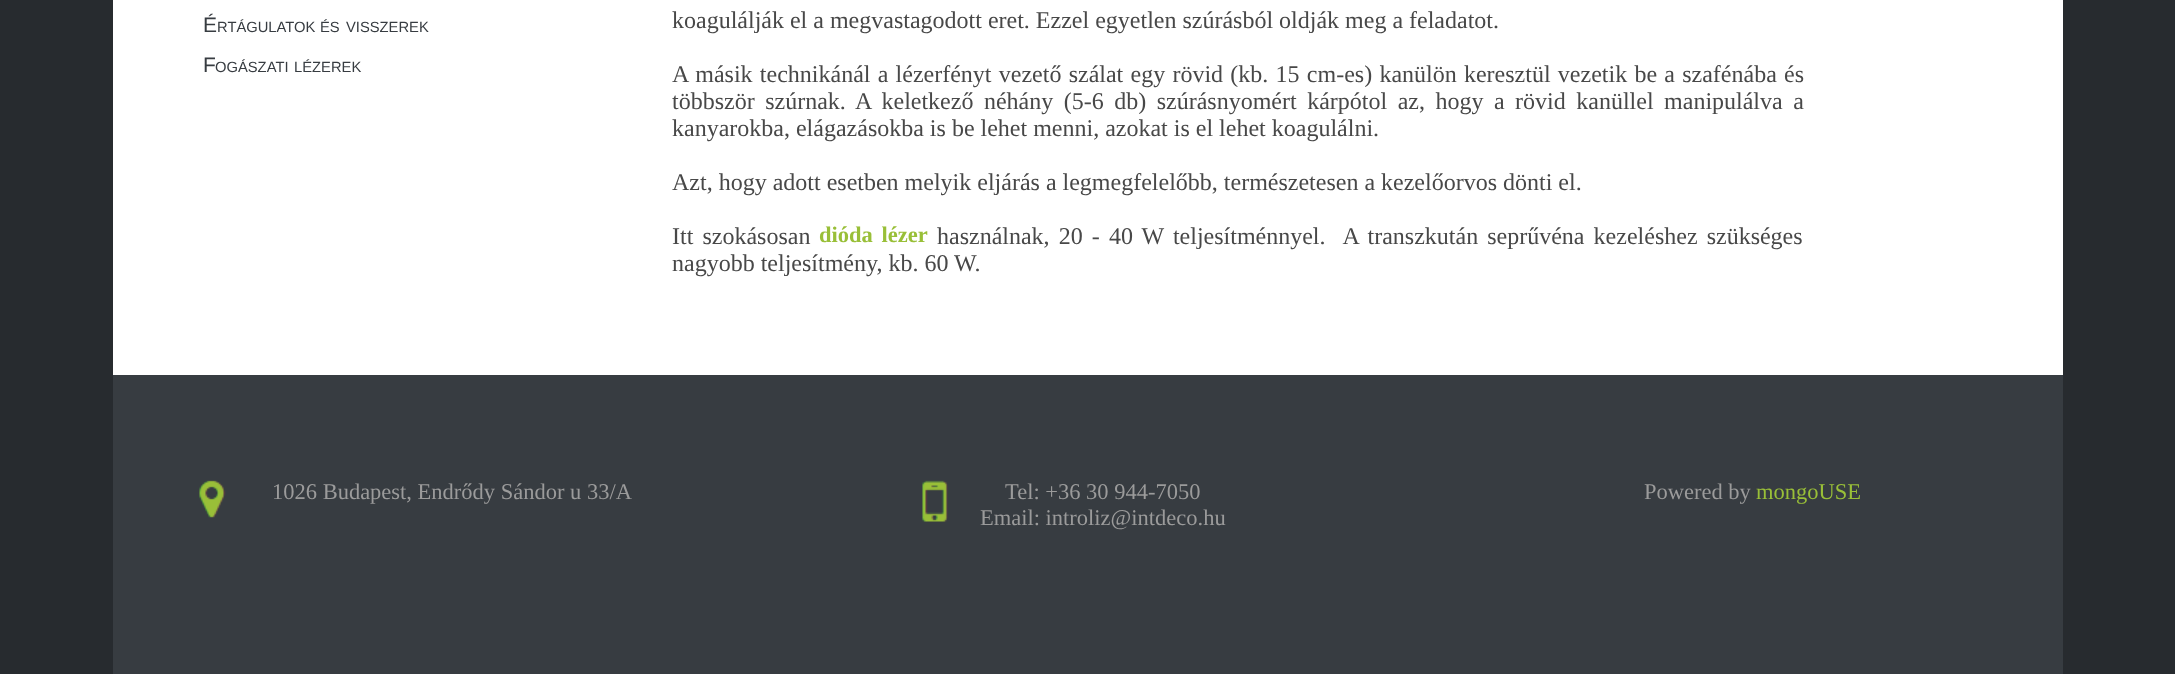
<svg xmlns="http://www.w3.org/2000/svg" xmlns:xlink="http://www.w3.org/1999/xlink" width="2175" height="674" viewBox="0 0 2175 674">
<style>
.cls-1{font:21px Liberation Sans;fill:#373c41}
.cls-2{font:14.75px Liberation Sans;fill:#373c41}
.cls-3{font:24px Liberation Serif;fill:#484848}
.cls-4{font:bold 22.5px Liberation Serif;fill:#99bf38}
.cls-5{font:22.5px Liberation Serif;fill:#9b9b9b}
.cls-6{font:22.5px Liberation Serif;fill:#99bf38}
</style>
<rect width="100%" height="100%" fill="#272b2f"/>
<rect fill="#ffffff" x="113" y="0" width="1950" height="375"/>
<rect fill="#373c41" x="113" y="375" width="1950" height="299"/>
<image xlink:href="image0.png" x="199" y="480" width="27" height="38"/>
<image xlink:href="image1.png" x="922" y="480" width="26" height="42"/>
<text class="cls-1" x="203" y="32">É</text>
<text class="cls-2" x="217" y="32">RTÁGULATOK</text>
<text class="cls-2" x="320" y="32">ÉS</text>
<text class="cls-2" x="346" y="32">VISSZEREK</text>
<text class="cls-1" x="203" y="72">F</text>
<text class="cls-2" x="215" y="72">OGÁSZATI</text>
<text class="cls-2" x="294" y="72">LÉZEREK</text>
<text class="cls-3" x="672" y="28">koagulálják el a megvastagodott eret. Ezzel egyetlen szúrásból oldják meg a feladatot.</text>
<text class="cls-3"><tspan x="672" y="82" word-spacing="1.25">A másik technikánál a lézerfényt vezető szálat egy rövid (kb. 15 cm-es) kanülön keresztül vezetik be a szafénába és</tspan><tspan x="672" y="109" word-spacing="4.5">többször szúrnak. A keletkező néhány (5-6 db) szúrásnyomért kárpótol az, hogy a rövid kanüllel manipulálva a</tspan><tspan x="672" y="136">kanyarokba, elágazásokba is be lehet menni, azokat is el lehet koagulálni.</tspan></text>
<text class="cls-3" x="672" y="190">Azt, hogy adott esetben melyik eljárás a legmegfelelőbb, természetesen a kezelőorvos dönti el.</text>
<text class="cls-3" x="672" y="244" word-spacing="3.1">Itt szokásosan</text>
<text class="cls-4" x="819" y="242" word-spacing="3.1">dióda lézer</text>
<text class="cls-3" xml:space="preserve" x="937" y="244" word-spacing="3.1">használnak, 20 - 40 W teljesítménnyel.  A transzkután seprűvéna kezeléshez szükséges</text>
<text class="cls-3" x="672" y="271">nagyobb teljesítmény, kb. 60 W.</text>
<text class="cls-5" x="272" y="499">1026 Budapest, Endrődy Sándor u 33/A</text>
<text class="cls-5" x="1005" y="499">Tel: +36 30 944-7050</text>
<text class="cls-5" x="980" y="525">Email: introliz@intdeco.hu</text>
<text class="cls-5" x="1644" y="499">Powered by</text>
<text class="cls-6" x="1756" y="499">mongoUSE</text>
</svg>
